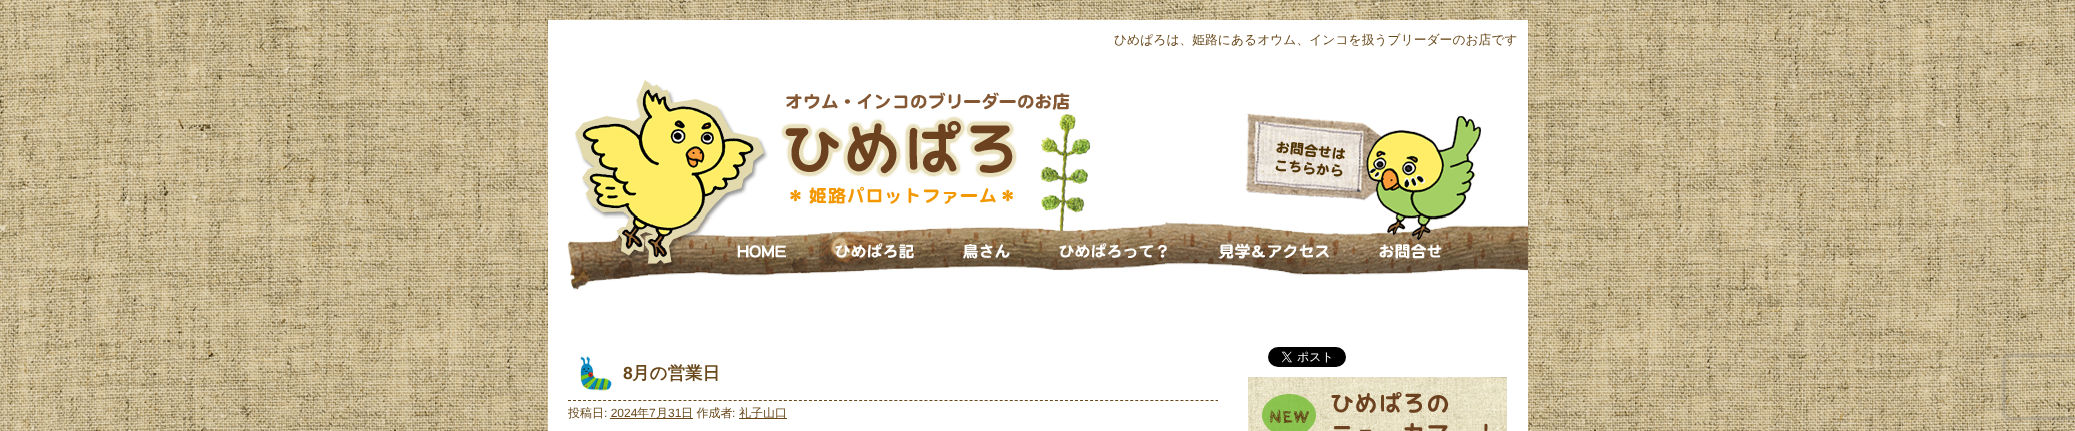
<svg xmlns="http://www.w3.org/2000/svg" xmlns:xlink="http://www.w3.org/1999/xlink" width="2075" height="431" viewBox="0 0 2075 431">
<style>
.cls-1{font:500 12.8px WenQuanYi Zen Hei;fill:#69491b}
.cls-2{font:bold 17.5px Liberation Sans;fill:#69491b}
.cls-3{font:bold 17.5px WenQuanYi Zen Hei;fill:#69491b}
.cls-4{font:500 12px WenQuanYi Zen Hei;fill:#69491b}
.cls-5{font:12px Liberation Sans;fill:#69491b}
</style>
<defs>
<clipPath id="clip1"><path d="M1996 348H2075V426H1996ZM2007 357H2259C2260 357 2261 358 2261 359V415C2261 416 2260 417 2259 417H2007C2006 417 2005 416 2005 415V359C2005 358 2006 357 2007 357Z" clip-rule="evenodd"/></clipPath>
</defs>
<rect width="100%" height="100%" fill="#ffffff"/>
<image xlink:href="image0.png" x="0" y="0" width="2075" height="431"/>
<rect fill="#ffffff" x="548" y="20" width="980" height="411"/>
<image xlink:href="image1.png" x="575" y="80" width="673" height="137"/>
<image xlink:href="image2.png" x="1248" y="113" width="233" height="104"/>
<image xlink:href="image3.png" x="567" y="217" width="231" height="73"/>
<image xlink:href="image4.png" x="798" y="228" width="130" height="46"/>
<image xlink:href="image5.png" x="928" y="227" width="110" height="42"/>
<image xlink:href="image6.png" x="1038" y="217" width="150" height="54"/>
<image xlink:href="image7.png" x="1188" y="223" width="160" height="52"/>
<image xlink:href="image8.png" x="1348" y="217" width="180" height="58"/>
<image xlink:href="image9.png" x="1268" y="347" width="78" height="20"/>
<image xlink:href="image10.png" x="580" y="356" width="32" height="35"/>
<path fill="none" stroke="#69491b" stroke-dasharray="3 2.02" d="M568 400.5H1218"/>
<rect fill="#69491b" x="610" y="418" width="83" height="1"/>
<rect fill="#69491b" x="739" y="418" width="48" height="1"/>
<image xlink:href="image11.png" x="1248" y="377" width="260" height="54"/>
<g clip-path="url(#clip1)">
<rect fill="#808080" filter="blur(2.5px)" x="2005" y="357" width="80" height="60" rx="2"/>
</g>
<text class="cls-1" x="1114" y="44">ひめぱろは、姫路にあるオウム、インコを扱うブリーダーのお店です</text>
<text class="cls-2" x="623" y="379">8</text>
<text class="cls-3" x="632" y="379">月の営業日</text>
<text class="cls-4" x="568" y="417">投稿日</text>
<text class="cls-5" x="604" y="417">: 2024</text>
<text class="cls-4" x="637" y="417">年</text>
<text class="cls-5" x="649" y="417">7</text>
<text class="cls-4" x="656" y="417">月</text>
<text class="cls-5" x="668" y="417">31</text>
<text class="cls-4" x="681" y="417">日 作成者</text>
<text class="cls-5" x="732" y="417">:</text>
<text class="cls-4" x="739" y="417">礼子山口</text>
</svg>
